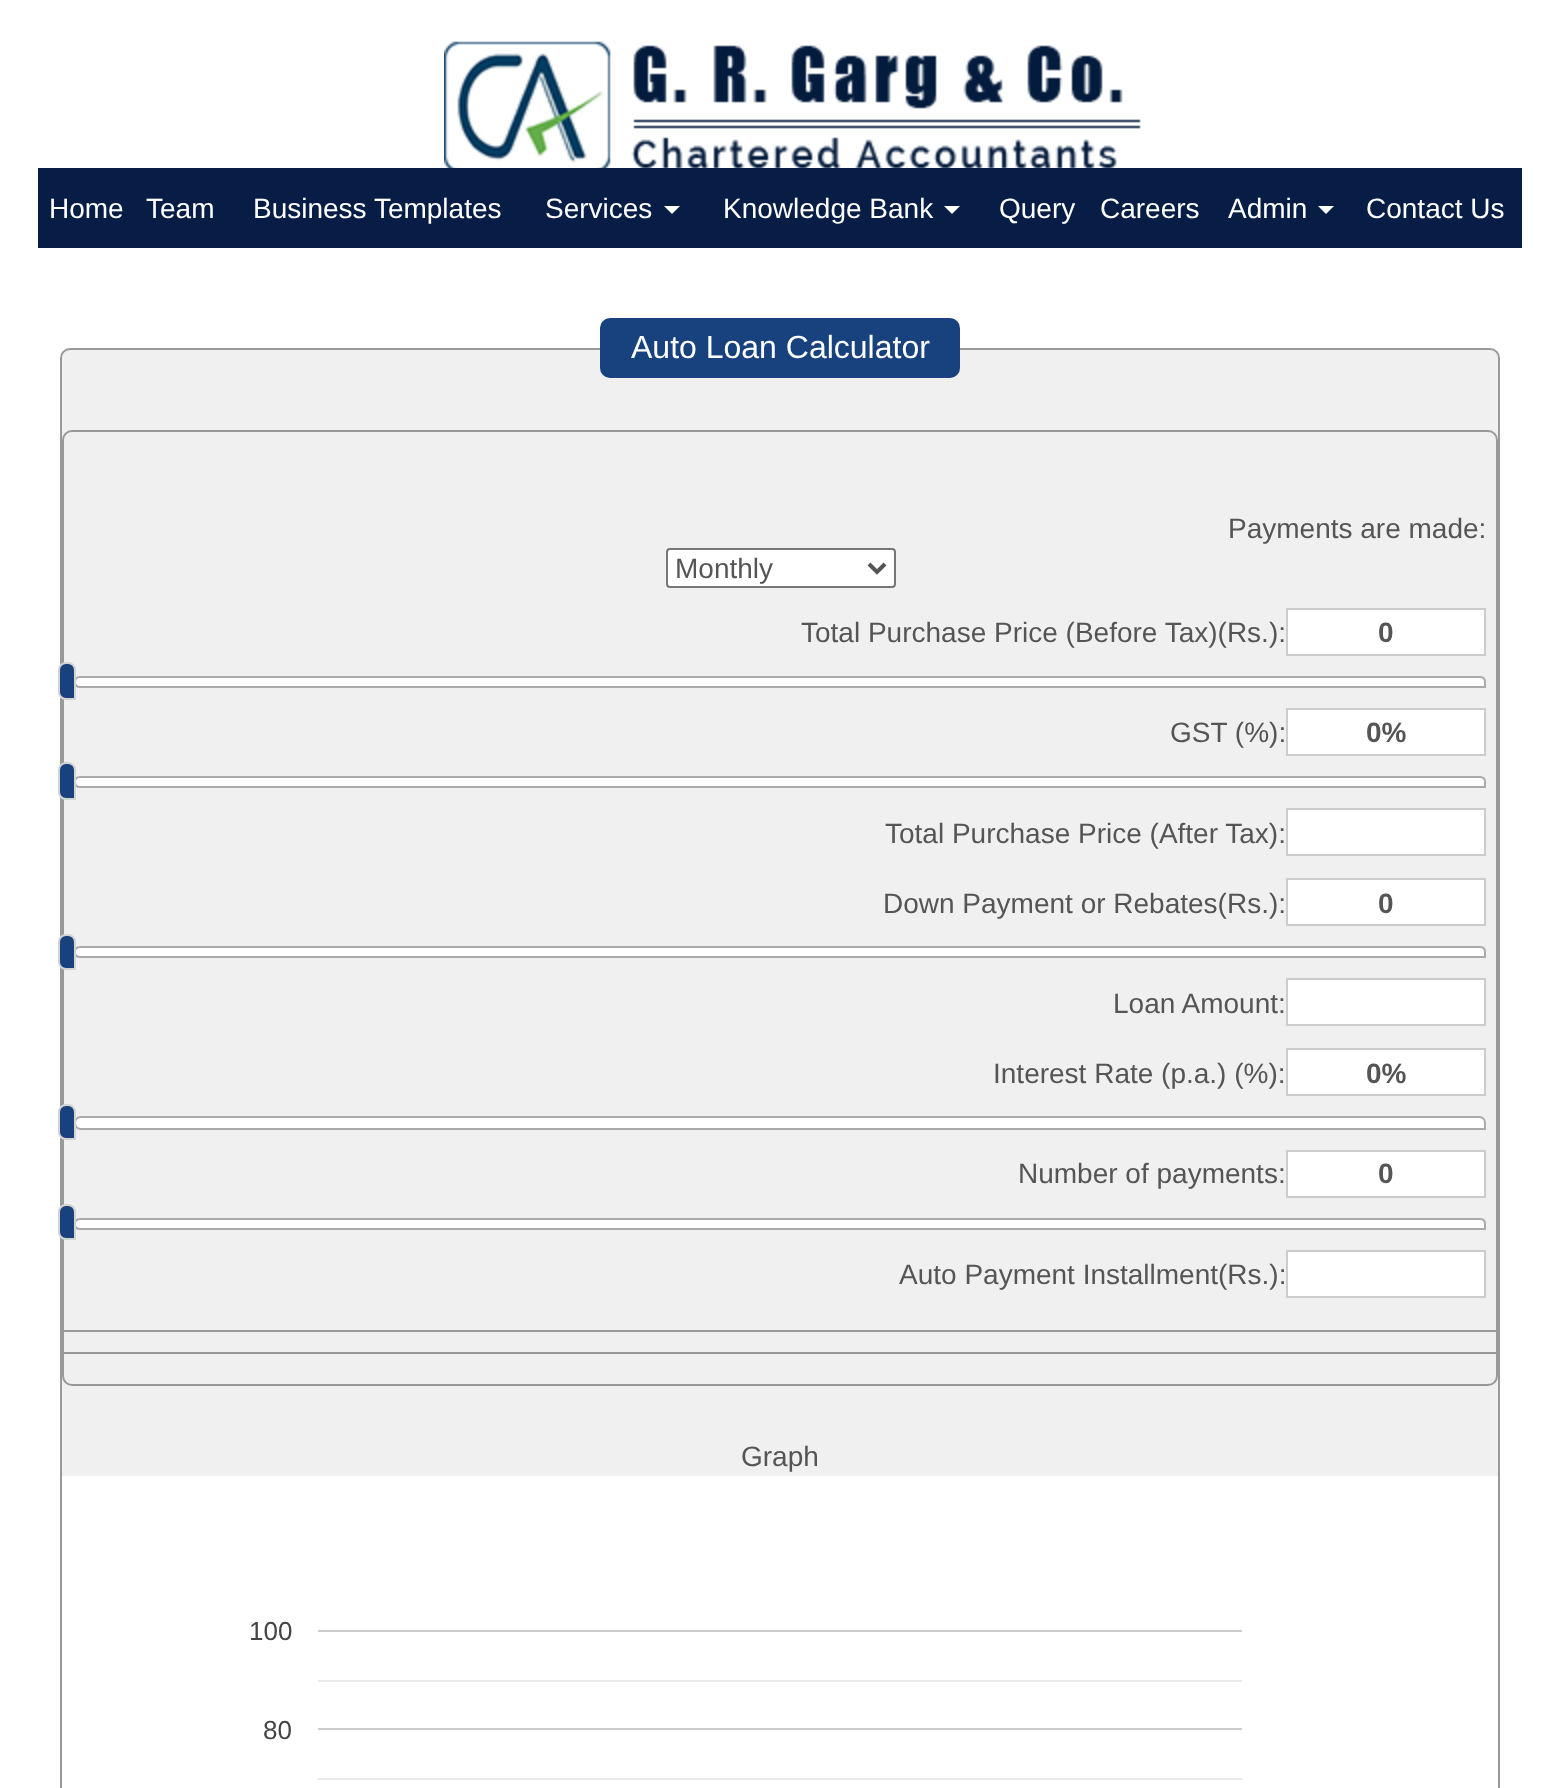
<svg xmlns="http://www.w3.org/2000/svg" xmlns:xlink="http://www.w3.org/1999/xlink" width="1559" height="1788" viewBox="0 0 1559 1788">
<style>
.cls-1{font:28px Liberation Sans;fill:#ffffff}
.cls-2{font:32px Liberation Sans;fill:#ffffff}
.cls-3{font:28px Liberation Sans;fill:#555555}
.cls-4{font:bold 28px Liberation Sans;fill:#555555}
.cls-5{font:26px Liberation Sans;fill:#444444}
</style>
<rect width="100%" height="100%" fill="#ffffff"/>
<image xlink:href="image0.png" x="444" y="41" width="697" height="127"/>
<rect fill="#071d46" x="38" y="168" width="1484" height="80"/>
<path fill="#ffffff" d="M664 206H680L672 214Z"/>
<path fill="#ffffff" d="M944 206H960L952 214Z"/>
<path fill="#ffffff" d="M1318 206H1334L1326 214Z"/>
<rect fill="#f0f0f0" stroke="#999999" stroke-width="2" x="61" y="349" width="1438" height="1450" rx="9"/>
<rect fill="#18427d" x="600" y="318" width="360" height="60" rx="10"/>
<rect fill="none" stroke="#999999" stroke-width="2" x="63" y="431" width="1434" height="954" rx="9"/>
<rect fill="#999999" x="64" y="1352" width="1432" height="2"/>
<rect fill="#999999" x="64" y="1330" width="1432" height="2"/>
<rect fill="#ffffff" stroke="#767676" stroke-width="2" x="667" y="549" width="228" height="38" rx="3"/>
<path fill="none" stroke="#555555" stroke-width="4" d="M869 564L877 572L885 564"/>
<rect fill="#ffffff" stroke="#cccccc" stroke-width="2" x="1287" y="609" width="198" height="46"/>
<path fill="#ffffff" stroke="#aaaaaa" stroke-width="2" d="M80 677H1480C1483 677 1485 679 1485 682V687H80C77 687 75 685 75 682C75 679 77 677 80 677Z"/>
<path fill="#18427d" stroke="#d3d3d3" stroke-width="2" d="M66 663H68C72 663 75 666 75 670V699H66C62 699 59 696 59 692V670C59 666 62 663 66 663Z"/>
<rect fill="#ffffff" stroke="#cccccc" stroke-width="2" x="1287" y="709" width="198" height="46"/>
<path fill="#ffffff" stroke="#aaaaaa" stroke-width="2" d="M80 777H1480C1483 777 1485 779 1485 782V787H80C77 787 75 785 75 782C75 779 77 777 80 777Z"/>
<path fill="#18427d" stroke="#d3d3d3" stroke-width="2" d="M66 763H68C72 763 75 766 75 770V799H66C62 799 59 796 59 792V770C59 766 62 763 66 763Z"/>
<rect fill="#ffffff" stroke="#cccccc" stroke-width="2" x="1287" y="809" width="198" height="46"/>
<rect fill="#ffffff" stroke="#cccccc" stroke-width="2" x="1287" y="879" width="198" height="46"/>
<path fill="#ffffff" stroke="#aaaaaa" stroke-width="2" d="M80 947H1480C1483 947 1485 949 1485 952V957H80C77 957 75 955 75 952C75 949 77 947 80 947Z"/>
<path fill="#18427d" stroke="#d3d3d3" stroke-width="2" d="M66 935H68C72 935 75 938 75 942V969H66C62 969 59 966 59 962V942C59 938 62 935 66 935Z"/>
<rect fill="#ffffff" stroke="#cccccc" stroke-width="2" x="1287" y="979" width="198" height="46"/>
<rect fill="#ffffff" stroke="#cccccc" stroke-width="2" x="1287" y="1049" width="198" height="46"/>
<path fill="#ffffff" stroke="#aaaaaa" stroke-width="2" d="M81 1117H1479C1482.5 1117 1485 1119.5 1485 1123V1129H81C77.5 1129 75 1126.5 75 1123C75 1119.5 77.5 1117 81 1117Z"/>
<path fill="#18427d" stroke="#d3d3d3" stroke-width="2" d="M66 1105H68C72 1105 75 1108 75 1112V1139H66C62 1139 59 1136 59 1132V1112C59 1108 62 1105 66 1105Z"/>
<rect fill="#ffffff" stroke="#cccccc" stroke-width="2" x="1287" y="1151" width="198" height="46"/>
<path fill="#ffffff" stroke="#aaaaaa" stroke-width="2" d="M80 1219H1480C1483 1219 1485 1221 1485 1224V1229H80C77 1229 75 1227 75 1224C75 1221 77 1219 80 1219Z"/>
<path fill="#18427d" stroke="#d3d3d3" stroke-width="2" d="M66 1205H68C72 1205 75 1208 75 1212V1239H66C62 1239 59 1236 59 1232V1212C59 1208 62 1205 66 1205Z"/>
<rect fill="#ffffff" stroke="#cccccc" stroke-width="2" x="1287" y="1251" width="198" height="46"/>
<image xlink:href="image1.png" x="62" y="1476" width="1436" height="312"/>
<text class="cls-1" x="49" y="218">Home</text>
<text class="cls-1" x="146" y="218">Team</text>
<text class="cls-1" x="253" y="218">Business Templates</text>
<text class="cls-1" x="545" y="218">Services</text>
<text class="cls-1" x="723" y="218">Knowledge Bank</text>
<text class="cls-1" x="999" y="218">Query</text>
<text class="cls-1" x="1100" y="218">Careers</text>
<text class="cls-1" x="1228" y="218">Admin</text>
<text class="cls-1" x="1366" y="218">Contact Us</text>
<text class="cls-2" x="631" y="358">Auto Loan Calculator</text>
<text class="cls-3" x="1228" y="538">Payments are made:</text>
<text class="cls-3" x="675" y="578">Monthly</text>
<text class="cls-3" x="801" y="642">Total Purchase Price (Before Tax)(Rs.):</text>
<text class="cls-4" x="1378" y="642">0</text>
<text class="cls-3" x="1170" y="742">GST (%):</text>
<text class="cls-4" x="1366" y="742">0%</text>
<text class="cls-3" x="885" y="843">Total Purchase Price (After Tax):</text>
<text class="cls-3" x="883" y="913">Down Payment or Rebates(Rs.):</text>
<text class="cls-4" x="1378" y="913">0</text>
<text class="cls-3" x="1113" y="1013">Loan Amount:</text>
<text class="cls-3" x="993" y="1083">Interest Rate (p.a.) (%):</text>
<text class="cls-4" x="1366" y="1083">0%</text>
<text class="cls-3" x="1018" y="1183">Number of payments:</text>
<text class="cls-4" x="1378" y="1183">0</text>
<text class="cls-3" x="899" y="1284">Auto Payment Installment(Rs.):</text>
<text class="cls-3" x="741" y="1466">Graph</text>
<text class="cls-5" x="249" y="1640">100</text>
<text class="cls-5" x="263" y="1739">80</text>
</svg>
